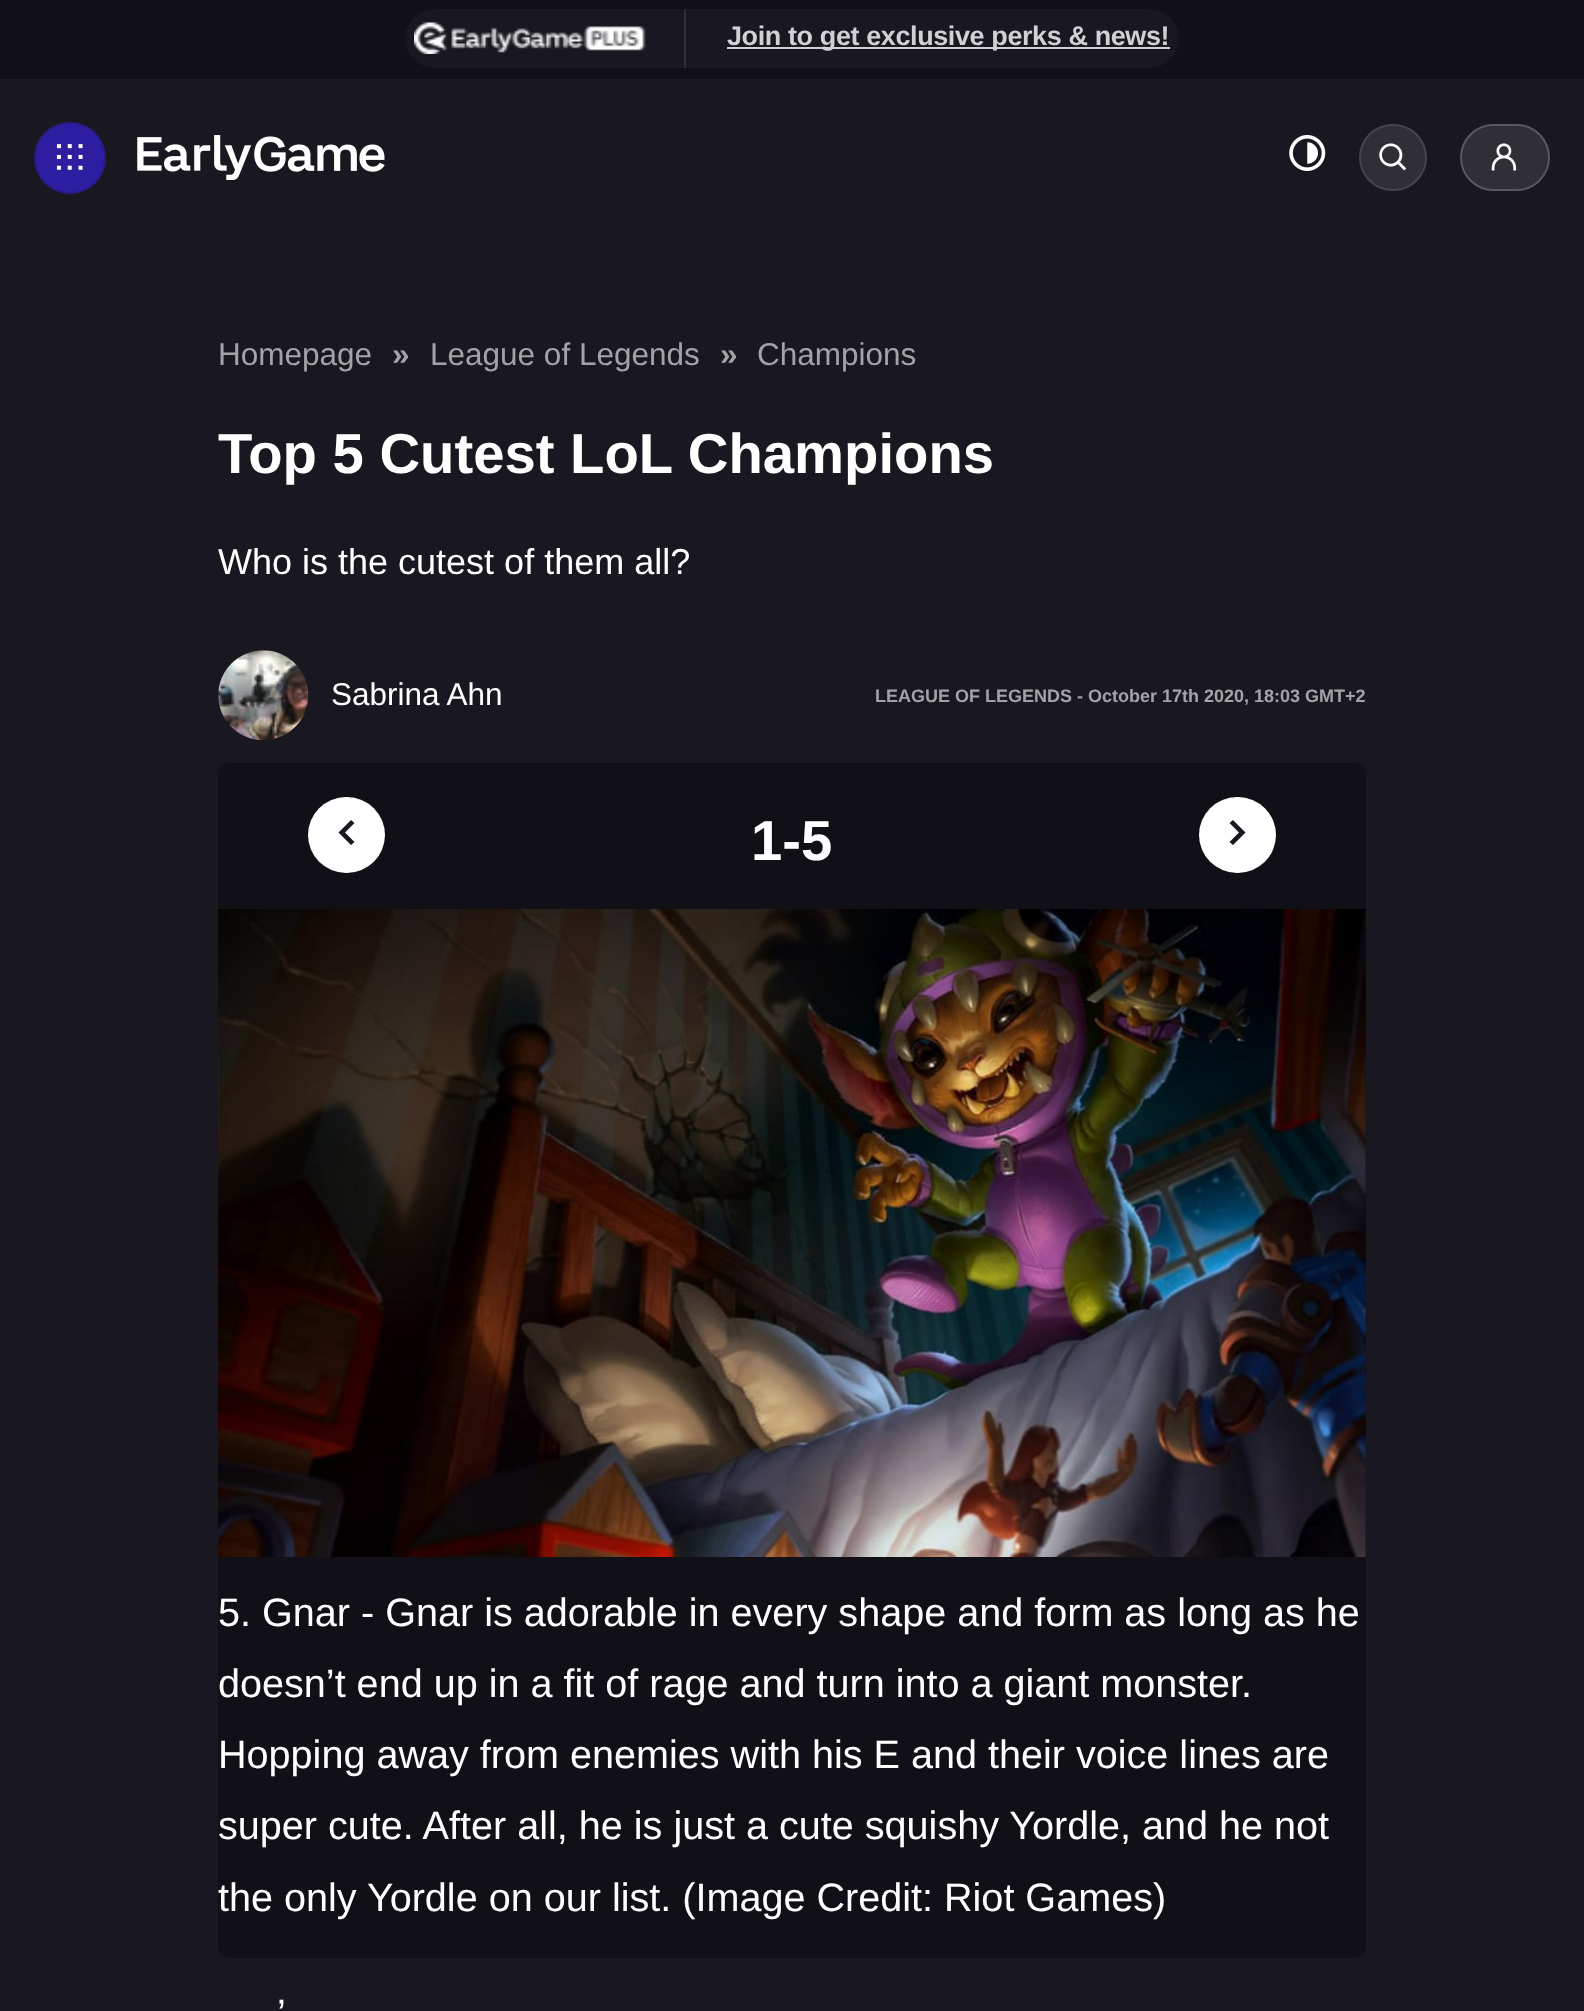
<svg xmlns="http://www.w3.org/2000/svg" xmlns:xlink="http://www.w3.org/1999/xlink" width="1584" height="2011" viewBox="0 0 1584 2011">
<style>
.cls-1{font:bold 27px Liberation Sans;letter-spacing:-0.4px;fill:#d1d1d3}
.cls-2{font:31.5px Liberation Sans;fill:#a3a3a6}
.cls-3{font:bold 31.5px Liberation Sans;fill:#a3a3a6}
.cls-4{font:bold 56.25px Liberation Sans;fill:#ffffff}
.cls-5{font:36px Liberation Sans;fill:#ffffff}
.cls-6{font:31.5px Liberation Sans;fill:#ffffff}
.cls-7{font:bold 18px Liberation Sans;fill:#a3a3a6}
.cls-8{font:39.6px Liberation Sans;fill:#ffffff}
</style>
<rect width="100%" height="100%" fill="#191820"/>
<rect fill="#111016" x="0" y="0" width="1584" height="79"/>
<rect fill="#191820" x="405" y="9" width="774" height="59" rx="29.5"/>
<image xlink:href="image0.png" x="414" y="22" width="232" height="32"/>
<rect fill="#302f36" x="684" y="9" width="2" height="59"/>
<rect fill="#d1d1d2" x="727" y="47" width="443" height="2"/>
<circle fill="#2c1da1" cx="70" cy="158" r="36"/>
<circle fill="none" stroke="#191820" stroke-opacity="0.2" stroke-width="2" cx="70" cy="158" r="35"/>
<image xlink:href="image1.png" x="56" y="144" width="27" height="26"/>
<image xlink:href="image2.png" x="137" y="135" width="248" height="45"/>
<image xlink:href="image3.png" x="1289" y="135" width="37" height="36"/>
<rect fill="#302f36" x="1359" y="124" width="68" height="67" rx="33.5"/>
<rect fill="none" stroke="#ffffff" stroke-opacity="0.1" stroke-width="2" x="1360" y="125" width="66" height="65" rx="32.5"/>
<image xlink:href="image4.png" x="1379" y="143" width="28" height="28"/>
<rect fill="#302f36" x="1460" y="124" width="90" height="67" rx="33.5"/>
<rect fill="none" stroke="#ffffff" stroke-opacity="0.2" stroke-width="2" x="1461" y="125" width="88" height="65" rx="32.5"/>
<image xlink:href="image5.png" x="1491" y="143" width="26" height="28"/>
<image xlink:href="image6.png" x="218" y="650" width="91" height="90"/>
<rect fill="#111016" x="218" y="763" width="1148" height="1195" rx="11"/>
<rect fill="#ffffff" x="308" y="797" width="77" height="76" rx="38"/>
<path fill="#191820" d="M338.5 832.5L351 820L354.5 823L345 832.5L354.5 842L351 845Z"/>
<rect fill="#ffffff" x="1199" y="797" width="77" height="76" rx="38"/>
<path fill="#191820" d="M1245.5 832.5L1233 820L1229.5 823L1239 832.5L1229.5 842L1233 845Z"/>
<image xlink:href="image7.png" x="218" y="909" width="1148" height="648"/>
<text class="cls-1" x="727" y="45">Join to get exclusive perks &amp; news!</text>
<text class="cls-2" x="218" y="365">Homepage</text>
<text class="cls-3" x="392" y="365">»</text>
<text class="cls-2" x="430" y="365">League of Legends</text>
<text class="cls-3" x="720" y="365">»</text>
<text class="cls-2" x="757" y="365">Champions</text>
<text class="cls-4" x="218" y="473">Top 5 Cutest LoL Champions</text>
<text class="cls-5" x="218" y="574">Who is the cutest of them all?</text>
<text class="cls-6" x="331" y="705">Sabrina Ahn</text>
<text class="cls-7" x="875" y="702">LEAGUE OF LEGENDS - October 17th 2020, 18:03 GMT+2</text>
<text class="cls-4" x="751" y="860">1-5</text>
<text class="cls-8"><tspan x="218" y="1626">5. Gnar - Gnar is adorable in every shape and form as long as he</tspan><tspan x="218" y="1697">doesn’t end up in a fit of rage and turn into a giant monster.</tspan><tspan x="218" y="1768">Hopping away from enemies with his E and their voice lines are</tspan><tspan x="218" y="1839">super cute. After all, he is just a cute squishy Yordle, and he not</tspan><tspan x="218" y="1911">the only Yordle on our list. (Image Credit: Riot Games)</tspan></text>
<text class="cls-8" x="277" y="2027">’</text>
</svg>
